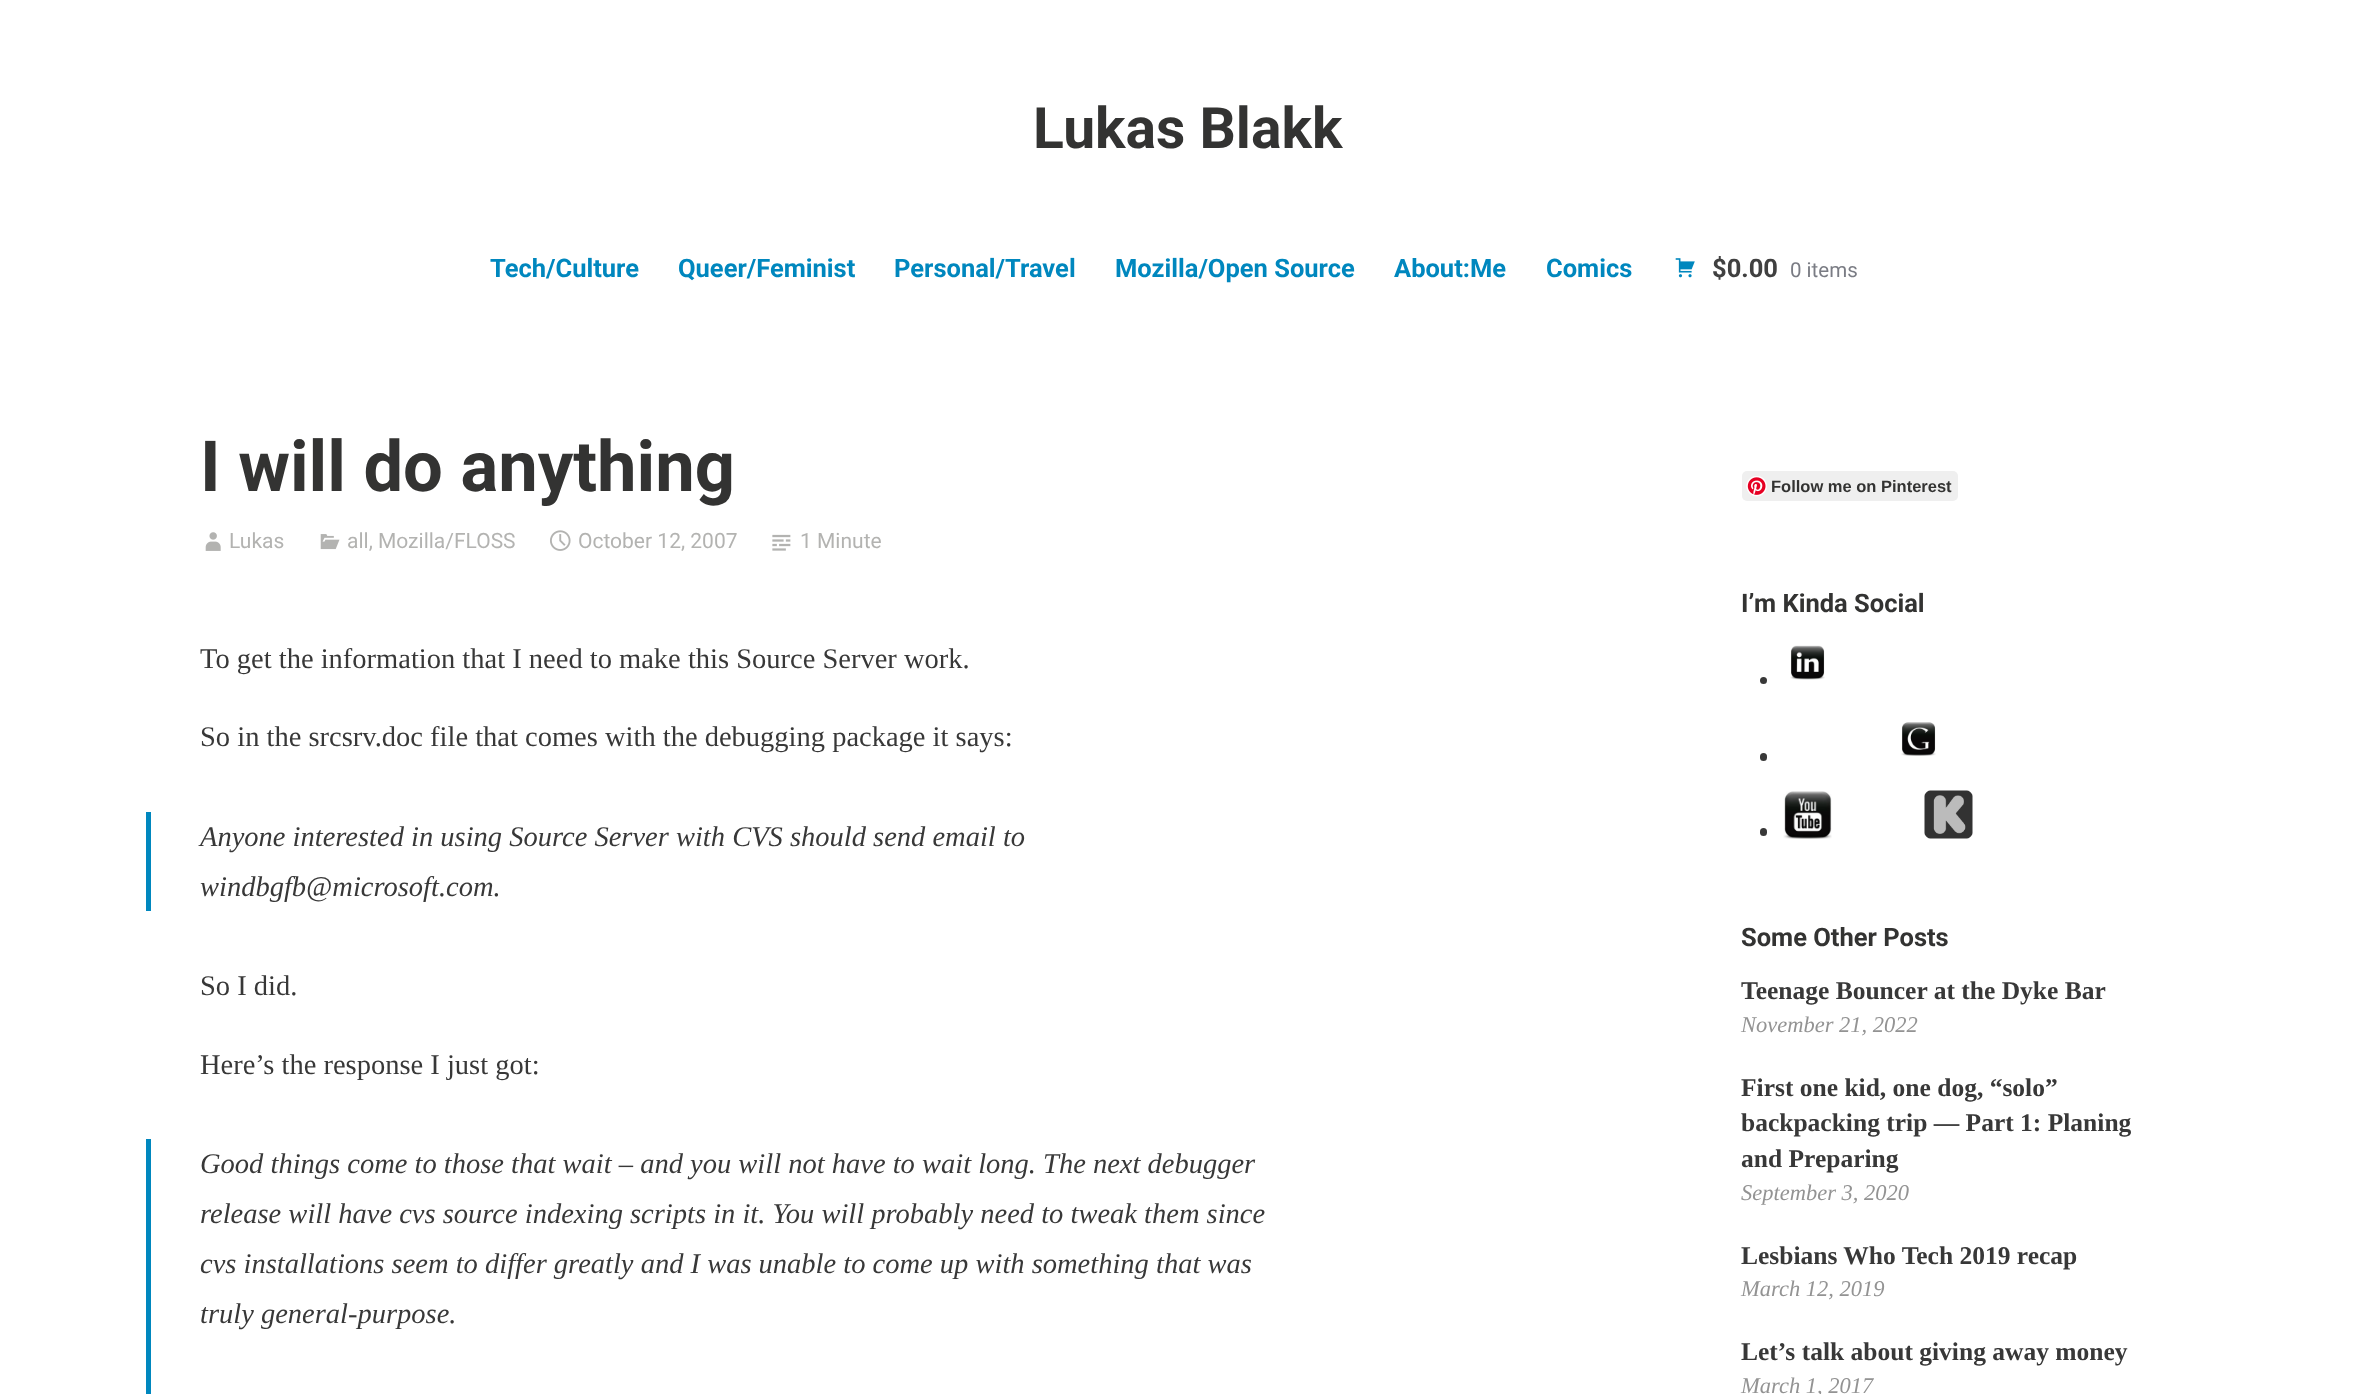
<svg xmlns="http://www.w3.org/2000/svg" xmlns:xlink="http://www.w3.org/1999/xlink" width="2375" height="1394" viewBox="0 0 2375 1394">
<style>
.cls-1{font:bold 57px Roboto;fill:#333332}
.cls-2{font:bold 25.5px Roboto;fill:#0087be}
.cls-3{font:bold 25.5px Roboto;fill:#404040}
.cls-4{font:20.5px Roboto;fill:#7a7c84}
.cls-5{font:bold 70.5px Roboto;fill:#333332}
.cls-6{font:21px Roboto;fill:#b3b3b1}
.cls-7{font:28.5px Liberation Serif;fill:#383838}
.cls-8{font:italic 28.5px Liberation Serif;fill:#383838}
.cls-9{font:bold 16.5px Liberation Sans;fill:#333332}
.cls-10{font:bold 25.5px Roboto;fill:#333332}
.cls-11{font:bold 25.5px Liberation Serif;fill:#383838}
.cls-12{font:italic 22.5px Liberation Serif;fill:#939393}
</style>
<rect width="100%" height="100%" fill="#ffffff"/>
<image xlink:href="image0.png" x="1675" y="258" width="20" height="20"/>
<image xlink:href="image1.png" x="205" y="532" width="16" height="19"/>
<image xlink:href="image2.png" x="320" y="534" width="20" height="16"/>
<image xlink:href="image3.png" x="550" y="530" width="21" height="21"/>
<image xlink:href="image4.png" x="772" y="534" width="19" height="17"/>
<rect fill="#0087be" x="146" y="812" width="5" height="99"/>
<rect fill="#0087be" x="146" y="1139" width="5" height="255"/>
<rect fill="#efefef" x="1742" y="471" width="216" height="30" rx="5"/>
<image xlink:href="image5.png" x="1746" y="476" width="21" height="21"/>
<circle fill="#383838" cx="1763.5" cy="680.5" r="3.5"/>
<image xlink:href="image6.png" x="1790" y="645" width="35" height="35"/>
<image xlink:href="image7.png" x="1901" y="722" width="35" height="34"/>
<rect fill="#383838" x="1760" y="753" width="7" height="8" rx="3.5"/>
<rect fill="#383838" x="1760" y="828" width="7" height="8" rx="3.5"/>
<image xlink:href="image8.png" x="1783" y="791" width="49" height="48"/>
<image xlink:href="image9.png" x="1924" y="790" width="49" height="49"/>
<text class="cls-1" x="1033" y="148">Lukas Blakk</text>
<text class="cls-2" x="490" y="277">Tech/Culture</text>
<text class="cls-2" x="678" y="277">Queer/Feminist</text>
<text class="cls-2" x="894" y="277">Personal/Travel</text>
<text class="cls-2" x="1115" y="277">Mozilla/Open Source</text>
<text class="cls-2" x="1394" y="277">About:Me</text>
<text class="cls-2" x="1546" y="277">Comics</text>
<text class="cls-3" x="1712" y="277">$0.00</text>
<text class="cls-4" x="1790" y="277">0 items</text>
<text class="cls-5" x="200" y="491">I will do anything</text>
<text class="cls-6" x="229" y="548">Lukas</text>
<text class="cls-6" x="347" y="548">all, Mozilla/FLOSS</text>
<text class="cls-6" x="578" y="548">October 12, 2007</text>
<text class="cls-6" x="800" y="548">1 Minute</text>
<text class="cls-7" x="200" y="668">To get the information that I need to make this Source Server work.</text>
<text class="cls-7" x="200" y="746">So in the srcsrv.doc file that comes with the debugging package it says:</text>
<text class="cls-8"><tspan x="200" y="846">Anyone interested in using Source Server with CVS should send email to</tspan><tspan x="200" y="896">windbgfb@microsoft.com.</tspan></text>
<text class="cls-7" x="200" y="995">So I did.</text>
<text class="cls-7" x="200" y="1074">Here’s the response I just got:</text>
<text class="cls-8"><tspan x="200" y="1173">Good things come to those that wait – and you will not have to wait long. The next debugger</tspan><tspan x="200" y="1223">release will have cvs source indexing scripts in it. You will probably need to tweak them since</tspan><tspan x="200" y="1273">cvs installations seem to differ greatly and I was unable to come up with something that was</tspan><tspan x="200" y="1323">truly general-purpose.</tspan></text>
<text class="cls-9" x="1771" y="492">Follow me on Pinterest</text>
<text class="cls-10" x="1741" y="612">I’m Kinda Social</text>
<text class="cls-10" x="1741" y="946">Some Other Posts</text>
<text class="cls-11" x="1741" y="999">Teenage Bouncer at the Dyke Bar</text>
<text class="cls-12" x="1741" y="1032">November 21, 2022</text>
<text class="cls-11"><tspan x="1741" y="1096">First one kid, one dog, “solo”</tspan><tspan x="1741" y="1131">backpacking trip — Part 1: Planing</tspan><tspan x="1741" y="1167">and Preparing</tspan></text>
<text class="cls-12" x="1741" y="1200">September 3, 2020</text>
<text class="cls-11" x="1741" y="1264">Lesbians Who Tech 2019 recap</text>
<text class="cls-12" x="1741" y="1296">March 12, 2019</text>
<text class="cls-11" x="1741" y="1360">Let’s talk about giving away money</text>
<text class="cls-12" x="1741" y="1393">March 1, 2017</text>
</svg>
